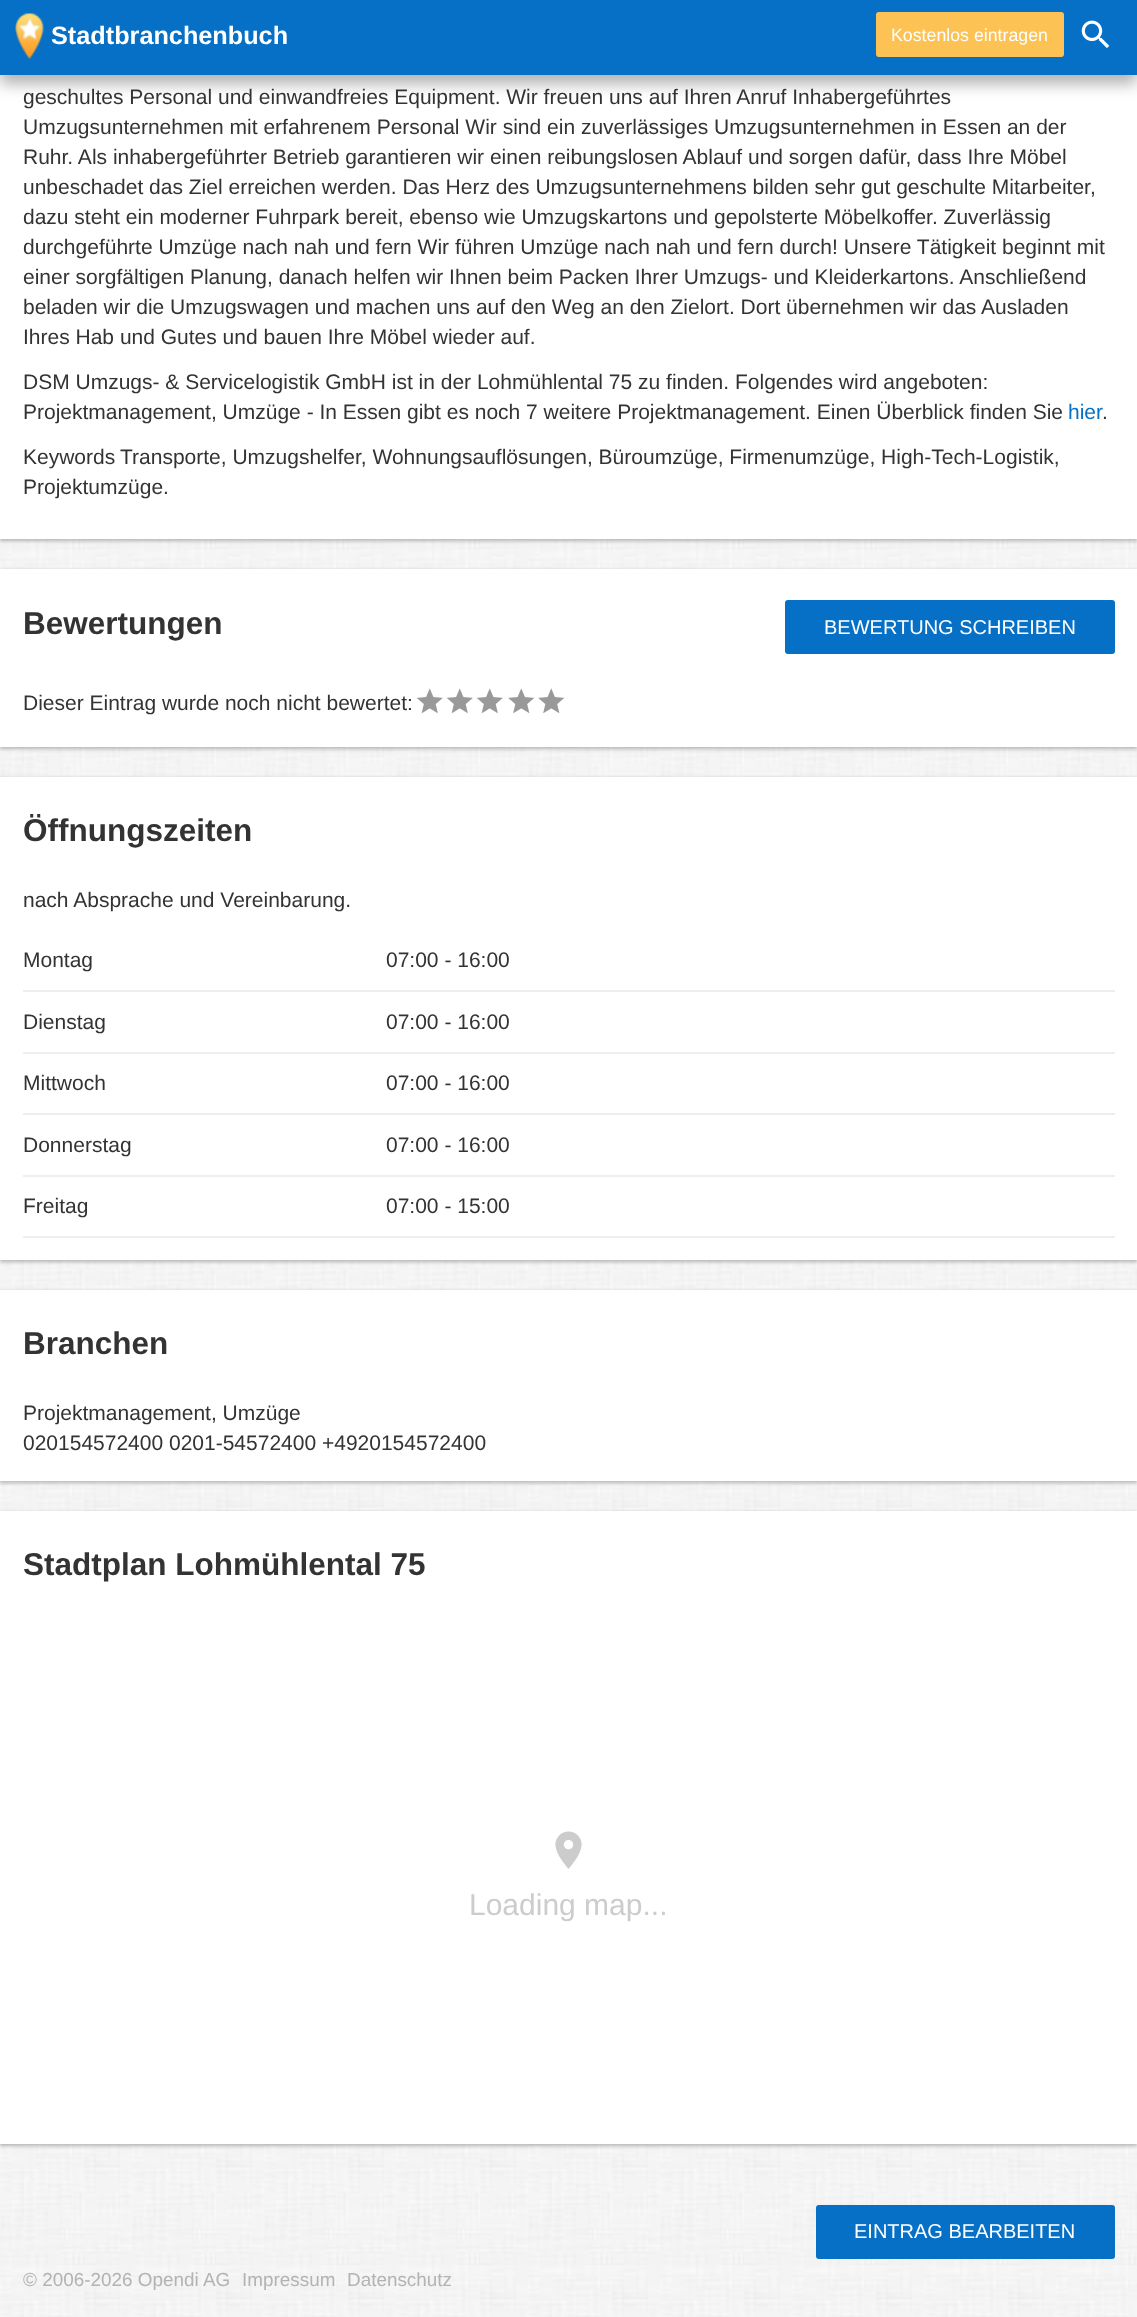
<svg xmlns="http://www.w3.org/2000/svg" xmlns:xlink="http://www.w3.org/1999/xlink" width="1137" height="2317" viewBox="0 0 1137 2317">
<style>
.cls-1{font:bold 25.25px Liberation Sans;fill:#ffffff}
.cls-2{font:17.75px Liberation Sans;fill:#ffffff}
.cls-3{font:21px Liberation Sans;fill:#333333}
.cls-4{font:21px Liberation Sans;fill:#0670c6}
.cls-5{font:bold 31.5px Liberation Sans;fill:#333333}
.cls-6{font:20px Liberation Sans;fill:#ffffff}
.cls-7{font:30px Liberation Sans;fill:#cccccc}
.cls-8{font:18.9px Liberation Sans;fill:#b3b3b3}
</style>
<rect width="100%" height="100%" fill="#ffffff"/>
<image xlink:href="image0.png" x="0" y="539" width="1137" height="1778"/>
<rect fill="#000000" fill-opacity="0.12" filter="blur(1.5px)" x="0" y="-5" width="1137" height="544"/>
<rect fill="#000000" fill-opacity="0.16" filter="blur(1.5px)" x="0" y="-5" width="1137" height="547"/>
<rect fill="#ffffff" x="0" y="75" width="1137" height="464"/>
<rect fill="#000000" fill-opacity="0.3" filter="blur(7.5px)" x="0" y="9" width="1137" height="75"/>
<rect fill="#0670c6" x="0" y="0" width="1137" height="75"/>
<image xlink:href="image1.png" x="15" y="13" width="29" height="46"/>
<rect fill="#fcc354" x="876" y="12" width="188" height="45" rx="3"/>
<image xlink:href="image2.png" x="1081" y="20" width="29" height="28"/>
<rect fill="#000000" fill-opacity="0.12" filter="blur(1.5px)" x="0" y="569" width="1137" height="178"/>
<rect fill="#000000" fill-opacity="0.16" filter="blur(1.5px)" x="0" y="572" width="1137" height="178"/>
<rect fill="#ffffff" x="0" y="569" width="1137" height="178"/>
<rect fill="#0670c6" x="785" y="600" width="330" height="54" rx="3"/>
<image xlink:href="image3.png" x="416" y="688" width="27" height="26"/>
<image xlink:href="image3.png" x="446" y="688" width="27" height="26"/>
<image xlink:href="image3.png" x="476" y="688" width="27" height="26"/>
<image xlink:href="image4.png" x="508" y="688" width="27" height="26"/>
<image xlink:href="image4.png" x="538" y="688" width="27" height="26"/>
<rect fill="#000000" fill-opacity="0.12" filter="blur(1.5px)" x="0" y="777" width="1137" height="483"/>
<rect fill="#000000" fill-opacity="0.16" filter="blur(1.5px)" x="0" y="780" width="1137" height="483"/>
<rect fill="#ffffff" x="0" y="777" width="1137" height="483"/>
<rect fill="#eeeeee" x="23" y="990" width="1092" height="2"/>
<rect fill="#eeeeee" x="23" y="1052" width="1092" height="2"/>
<rect fill="#eeeeee" x="23" y="1113" width="1092" height="2"/>
<rect fill="#eeeeee" x="23" y="1175" width="1092" height="2"/>
<rect fill="#eeeeee" x="23" y="1236" width="1092" height="2"/>
<rect fill="#000000" fill-opacity="0.12" filter="blur(1.5px)" x="0" y="1290" width="1137" height="191"/>
<rect fill="#000000" fill-opacity="0.16" filter="blur(1.5px)" x="0" y="1293" width="1137" height="191"/>
<rect fill="#ffffff" x="0" y="1290" width="1137" height="191"/>
<rect fill="#000000" fill-opacity="0.12" filter="blur(1.5px)" x="0" y="1511" width="1137" height="633"/>
<rect fill="#000000" fill-opacity="0.16" filter="blur(1.5px)" x="0" y="1514" width="1137" height="633"/>
<rect fill="#ffffff" x="0" y="1511" width="1137" height="633"/>
<image xlink:href="image5.png" x="555" y="1831" width="27" height="38"/>
<rect fill="#0670c6" x="816" y="2205" width="299" height="54" rx="3"/>
<text class="cls-1" x="51" y="44">Stadtbranchenbuch</text>
<text class="cls-2" x="891" y="41">Kostenlos eintragen</text>
<text class="cls-3"><tspan x="23" y="104">geschultes Personal und einwandfreies Equipment. Wir freuen uns auf Ihren Anruf Inhabergeführtes</tspan><tspan x="23" y="134">Umzugsunternehmen mit erfahrenem Personal Wir sind ein zuverlässiges Umzugsunternehmen in Essen an der</tspan><tspan x="23" y="164">Ruhr. Als inhabergeführter Betrieb garantieren wir einen reibungslosen Ablauf und sorgen dafür, dass Ihre Möbel</tspan><tspan x="23" y="194">unbeschadet das Ziel erreichen werden. Das Herz des Umzugsunternehmens bilden sehr gut geschulte Mitarbeiter,</tspan><tspan x="23" y="224">dazu steht ein moderner Fuhrpark bereit, ebenso wie Umzugskartons und gepolsterte Möbelkoffer. Zuverlässig</tspan><tspan x="23" y="254">durchgeführte Umzüge nach nah und fern Wir führen Umzüge nach nah und fern durch! Unsere Tätigkeit beginnt mit</tspan><tspan x="23" y="284">einer sorgfältigen Planung, danach helfen wir Ihnen beim Packen Ihrer Umzugs- und Kleiderkartons. Anschließend</tspan><tspan x="23" y="314">beladen wir die Umzugswagen und machen uns auf den Weg an den Zielort. Dort übernehmen wir das Ausladen</tspan><tspan x="23" y="344">Ihres Hab und Gutes und bauen Ihre Möbel wieder auf.</tspan></text>
<text class="cls-3"><tspan x="23" y="389">DSM Umzugs- &amp; Servicelogistik GmbH ist in der Lohmühlental 75 zu finden. Folgendes wird angeboten:</tspan><tspan x="23" y="419">Projektmanagement, Umzüge - In Essen gibt es noch 7 weitere Projektmanagement. Einen Überblick finden Sie</tspan></text>
<text class="cls-4" x="1068" y="419">hier</text>
<text class="cls-3" x="1102" y="419">.</text>
<text class="cls-3" x="23" y="464">Keywords</text>
<text class="cls-3" x="120" y="464">Transporte, Umzugshelfer, Wohnungsauflösungen, Büroumzüge, Firmenumzüge, High-Tech-Logistik,</text>
<text class="cls-3" x="23" y="494">Projektumzüge.</text>
<text class="cls-5" x="23" y="634">Bewertungen</text>
<text class="cls-6" x="824" y="634">BEWERTUNG SCHREIBEN</text>
<text class="cls-3" x="23" y="710">Dieser Eintrag wurde noch nicht bewertet:</text>
<text class="cls-5" x="23" y="841">Öffnungszeiten</text>
<text class="cls-3" x="23" y="907">nach Absprache und Vereinbarung.</text>
<text class="cls-3" x="23" y="967">Montag</text>
<text class="cls-3" x="386" y="967">07:00 - 16:00</text>
<text class="cls-3" x="23" y="1029">Dienstag</text>
<text class="cls-3" x="386" y="1029">07:00 - 16:00</text>
<text class="cls-3" x="23" y="1090">Mittwoch</text>
<text class="cls-3" x="386" y="1090">07:00 - 16:00</text>
<text class="cls-3" x="23" y="1152">Donnerstag</text>
<text class="cls-3" x="386" y="1152">07:00 - 16:00</text>
<text class="cls-3" x="23" y="1213">Freitag</text>
<text class="cls-3" x="386" y="1213">07:00 - 15:00</text>
<text class="cls-5" x="23" y="1354">Branchen</text>
<text class="cls-3"><tspan x="23" y="1420">Projektmanagement, Umzüge</tspan><tspan x="23" y="1450">020154572400 0201-54572400 +4920154572400</tspan></text>
<text class="cls-5" x="23" y="1575">Stadtplan Lohmühlental 75</text>
<text class="cls-7" x="469" y="1915">Loading map...</text>
<text class="cls-6" x="854" y="2238">EINTRAG BEARBEITEN</text>
<text class="cls-8" x="23" y="2286">© 2006-2026 Opendi AG</text>
<text class="cls-8" x="242" y="2286">Impressum</text>
<text class="cls-8" x="347" y="2286">Datenschutz</text>
</svg>
